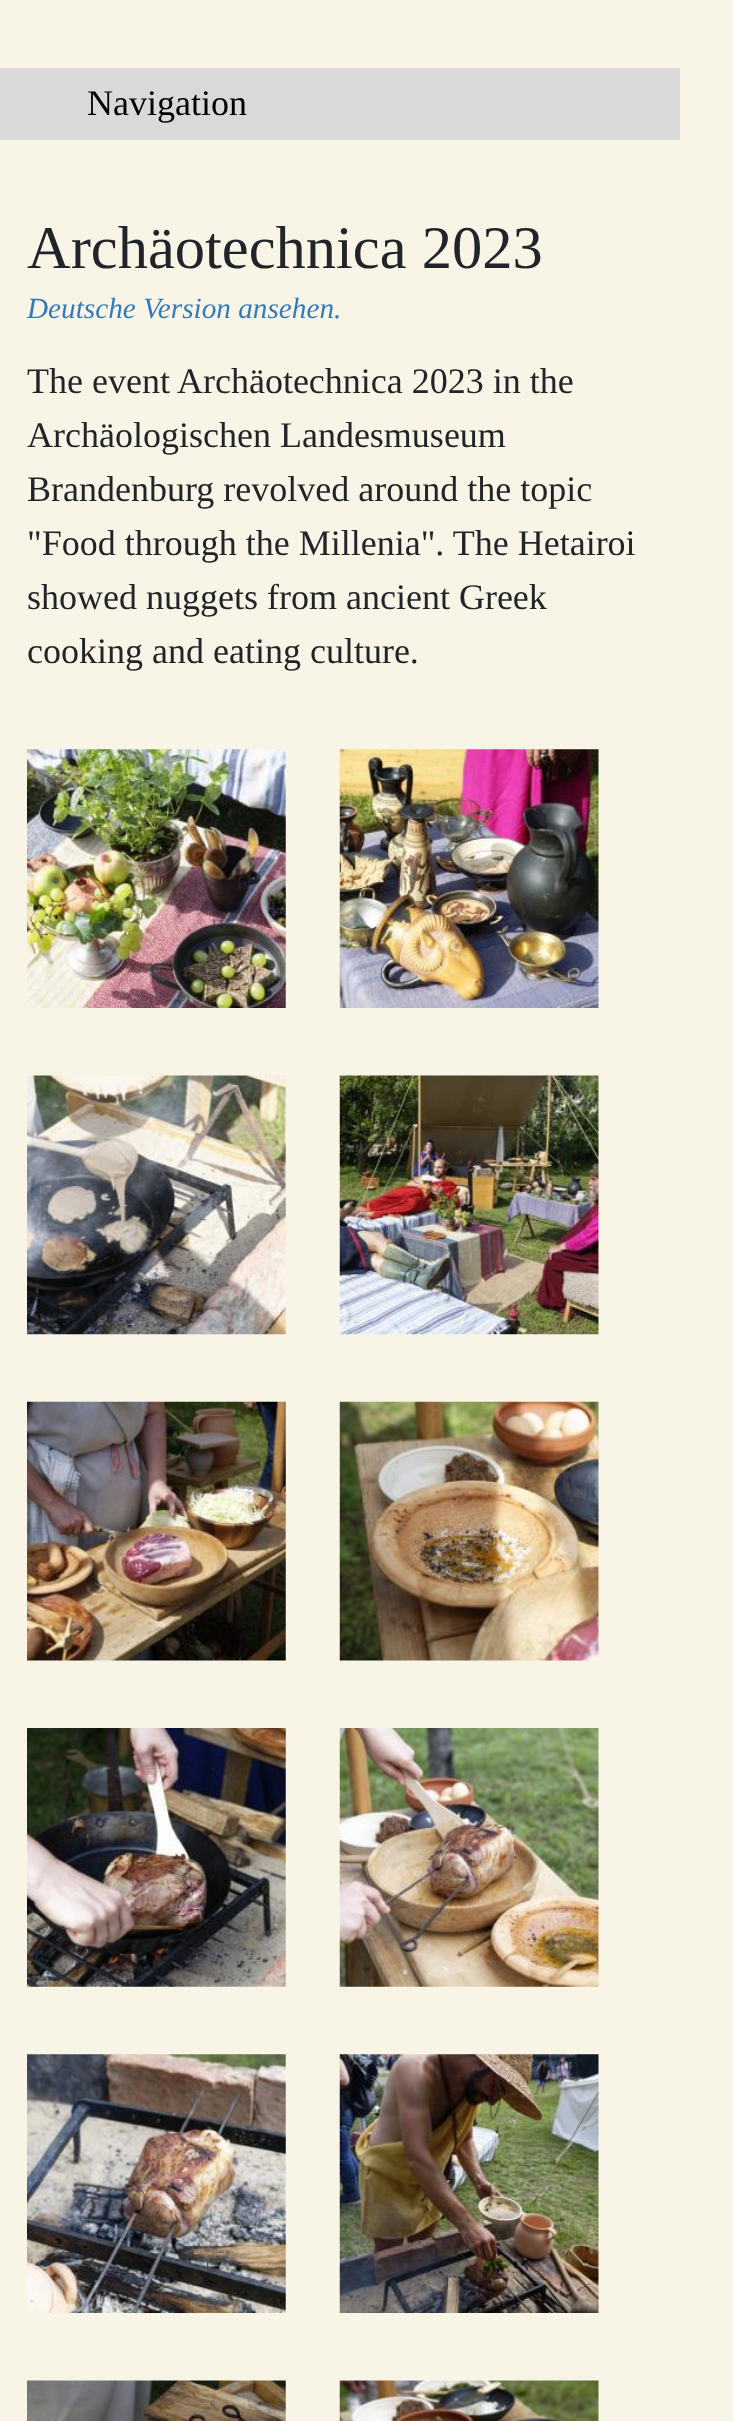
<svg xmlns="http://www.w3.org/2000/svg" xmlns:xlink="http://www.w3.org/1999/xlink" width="733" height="2421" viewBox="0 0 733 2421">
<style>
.cls-1{font:36px Liberation Serif;fill:#000000}
.cls-2{font:60.5px Liberation Serif;fill:#212529}
.cls-3{font:italic 29.25px Liberation Serif;fill:#337ab7}
.cls-4{font:36px Liberation Serif;fill:#212529}
</style>
<rect width="100%" height="100%" fill="#f8f5e7"/>
<rect fill="#d9d9d9" x="0" y="68" width="680" height="72"/>
<image xlink:href="image0.png" x="27" y="749" width="259" height="259"/>
<image xlink:href="image1.png" x="339" y="749" width="260" height="259"/>
<image xlink:href="image2.png" x="27" y="1075" width="259" height="260"/>
<image xlink:href="image3.png" x="339" y="1075" width="260" height="260"/>
<image xlink:href="image4.png" x="27" y="1401" width="259" height="260"/>
<image xlink:href="image5.png" x="339" y="1401" width="260" height="260"/>
<image xlink:href="image6.png" x="27" y="1728" width="259" height="259"/>
<image xlink:href="image7.png" x="339" y="1728" width="260" height="259"/>
<image xlink:href="image8.png" x="27" y="2054" width="259" height="259"/>
<image xlink:href="image9.png" x="339" y="2054" width="260" height="259"/>
<image xlink:href="image10.png" x="27" y="2380" width="259" height="41"/>
<image xlink:href="image11.png" x="339" y="2380" width="260" height="41"/>
<text class="cls-1" x="87" y="115">Navigation</text>
<text class="cls-2" x="27" y="268">Archäotechnica 2023</text>
<text class="cls-3" x="27" y="318">Deutsche Version ansehen.</text>
<text class="cls-4"><tspan x="27" y="393">The event Archäotechnica 2023 in the</tspan><tspan x="27" y="447">Archäologischen Landesmuseum</tspan><tspan x="27" y="501">Brandenburg revolved around the topic</tspan><tspan x="27" y="555">"Food through the Millenia". The Hetairoi</tspan><tspan x="27" y="609">showed nuggets from ancient Greek</tspan><tspan x="27" y="663">cooking and eating culture.</tspan></text>
</svg>
